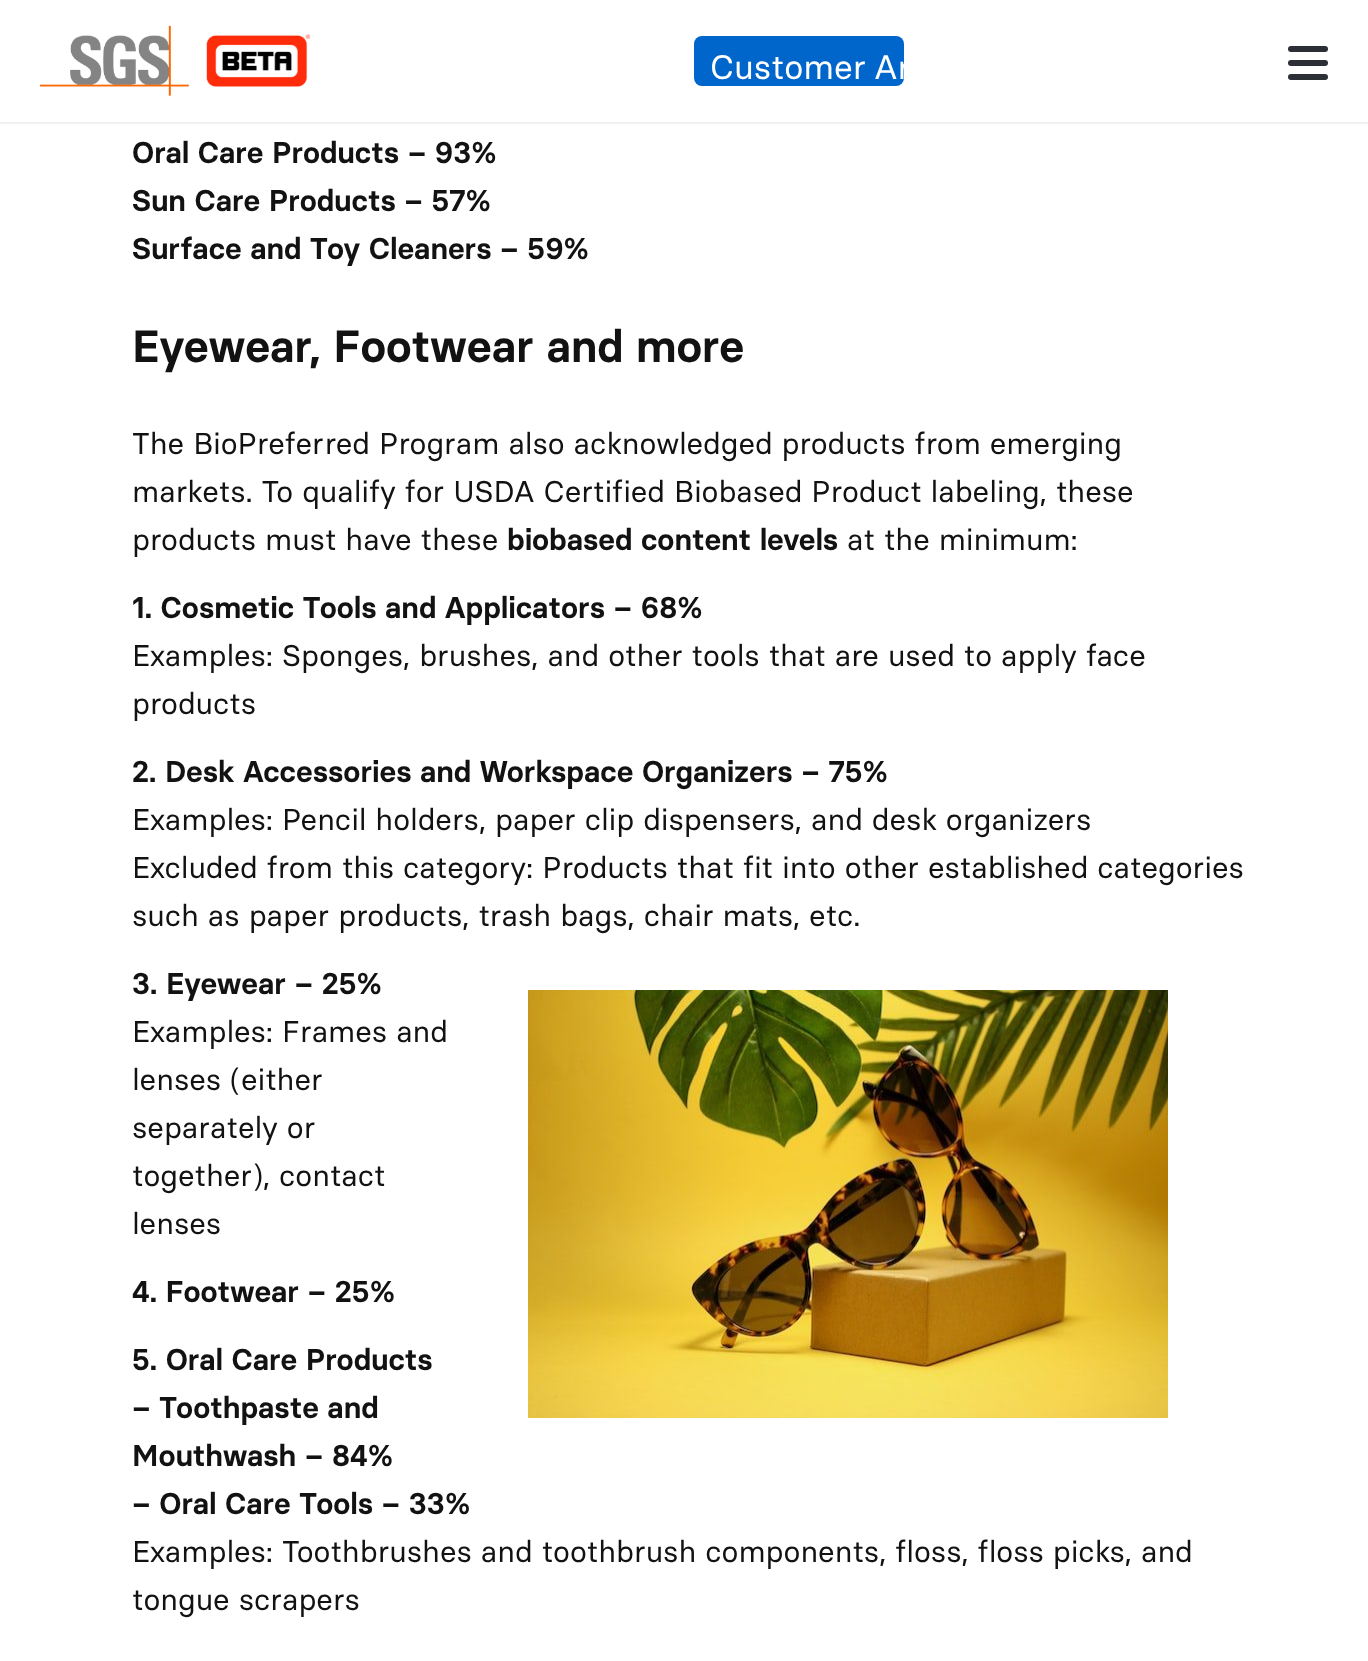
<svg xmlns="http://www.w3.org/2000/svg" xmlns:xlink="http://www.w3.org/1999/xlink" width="1368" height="1661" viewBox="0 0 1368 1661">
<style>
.cls-1{font:34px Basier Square;fill:#ffffff}
.cls-2{font:600 30px Basier Square;fill:#121212}
.cls-3{font:600 45px Basier Square;fill:#121212}
.cls-4{font:30px Basier Square;fill:#121212}
</style>
<rect width="100%" height="100%" fill="#ffffff"/>
<rect fill="#f0f0f0" x="0" y="122" width="1368" height="2"/>
<image xlink:href="image0.png" x="40" y="25" width="271" height="72"/>
<rect fill="#0066cc" x="694" y="36" width="210" height="50" rx="8"/>
<rect fill="#2d2f37" x="1288" y="60" width="40" height="6" rx="3"/>
<rect fill="#2d2f37" x="1288" y="46" width="40" height="6" rx="3"/>
<rect fill="#2d2f37" x="1288" y="74" width="40" height="6" rx="3"/>
<image xlink:href="image1.png" x="528" y="990" width="640" height="428"/>
<text class="cls-1" x="710" y="79" word-spacing="-2">Customer Ar</text>
<text class="cls-2"><tspan x="132" y="163">Oral Care Products – 93%</tspan><tspan x="132" y="211">Sun Care Products – 57%</tspan><tspan x="132" y="259">Surface and Toy Cleaners – 59%</tspan></text>
<text class="cls-3" x="132" y="362">Eyewear, Footwear and more</text>
<text class="cls-4"><tspan x="132" y="454">The BioPreferred Program also acknowledged products from emerging</tspan><tspan x="132" y="502">markets. To qualify for USDA Certified Biobased Product labeling, these</tspan><tspan x="132" y="550">products must have these</tspan></text>
<text class="cls-2" x="507" y="550">biobased content levels</text>
<text class="cls-4" x="847" y="550">at the minimum:</text>
<text class="cls-2" x="132" y="618">1. Cosmetic Tools and Applicators – 68%</text>
<text class="cls-4"><tspan x="132" y="666">Examples: Sponges, brushes, and other tools that are used to apply face</tspan><tspan x="132" y="714">products</tspan></text>
<text class="cls-2" x="132" y="782">2. Desk Accessories and Workspace Organizers – 75%</text>
<text class="cls-4"><tspan x="132" y="830">Examples: Pencil holders, paper clip dispensers, and desk organizers</tspan><tspan x="132" y="878">Excluded from this category: Products that fit into other established categories</tspan><tspan x="132" y="926">such as paper products, trash bags, chair mats, etc.</tspan></text>
<text class="cls-2" x="132" y="994">3. Eyewear – 25%</text>
<text class="cls-4"><tspan x="132" y="1042">Examples: Frames and</tspan><tspan x="132" y="1090">lenses (either</tspan><tspan x="132" y="1138">separately or</tspan><tspan x="132" y="1186">together), contact</tspan><tspan x="132" y="1234">lenses</tspan></text>
<text class="cls-2" x="132" y="1302">4. Footwear – 25%</text>
<text class="cls-2"><tspan x="132" y="1370">5. Oral Care Products</tspan><tspan x="132" y="1418">– Toothpaste and</tspan><tspan x="132" y="1466">Mouthwash – 84%</tspan><tspan x="132" y="1514">– Oral Care Tools – 33%</tspan></text>
<text class="cls-4"><tspan x="132" y="1562">Examples: Toothbrushes and toothbrush components, floss, floss picks, and</tspan><tspan x="132" y="1610">tongue scrapers</tspan></text>
</svg>
